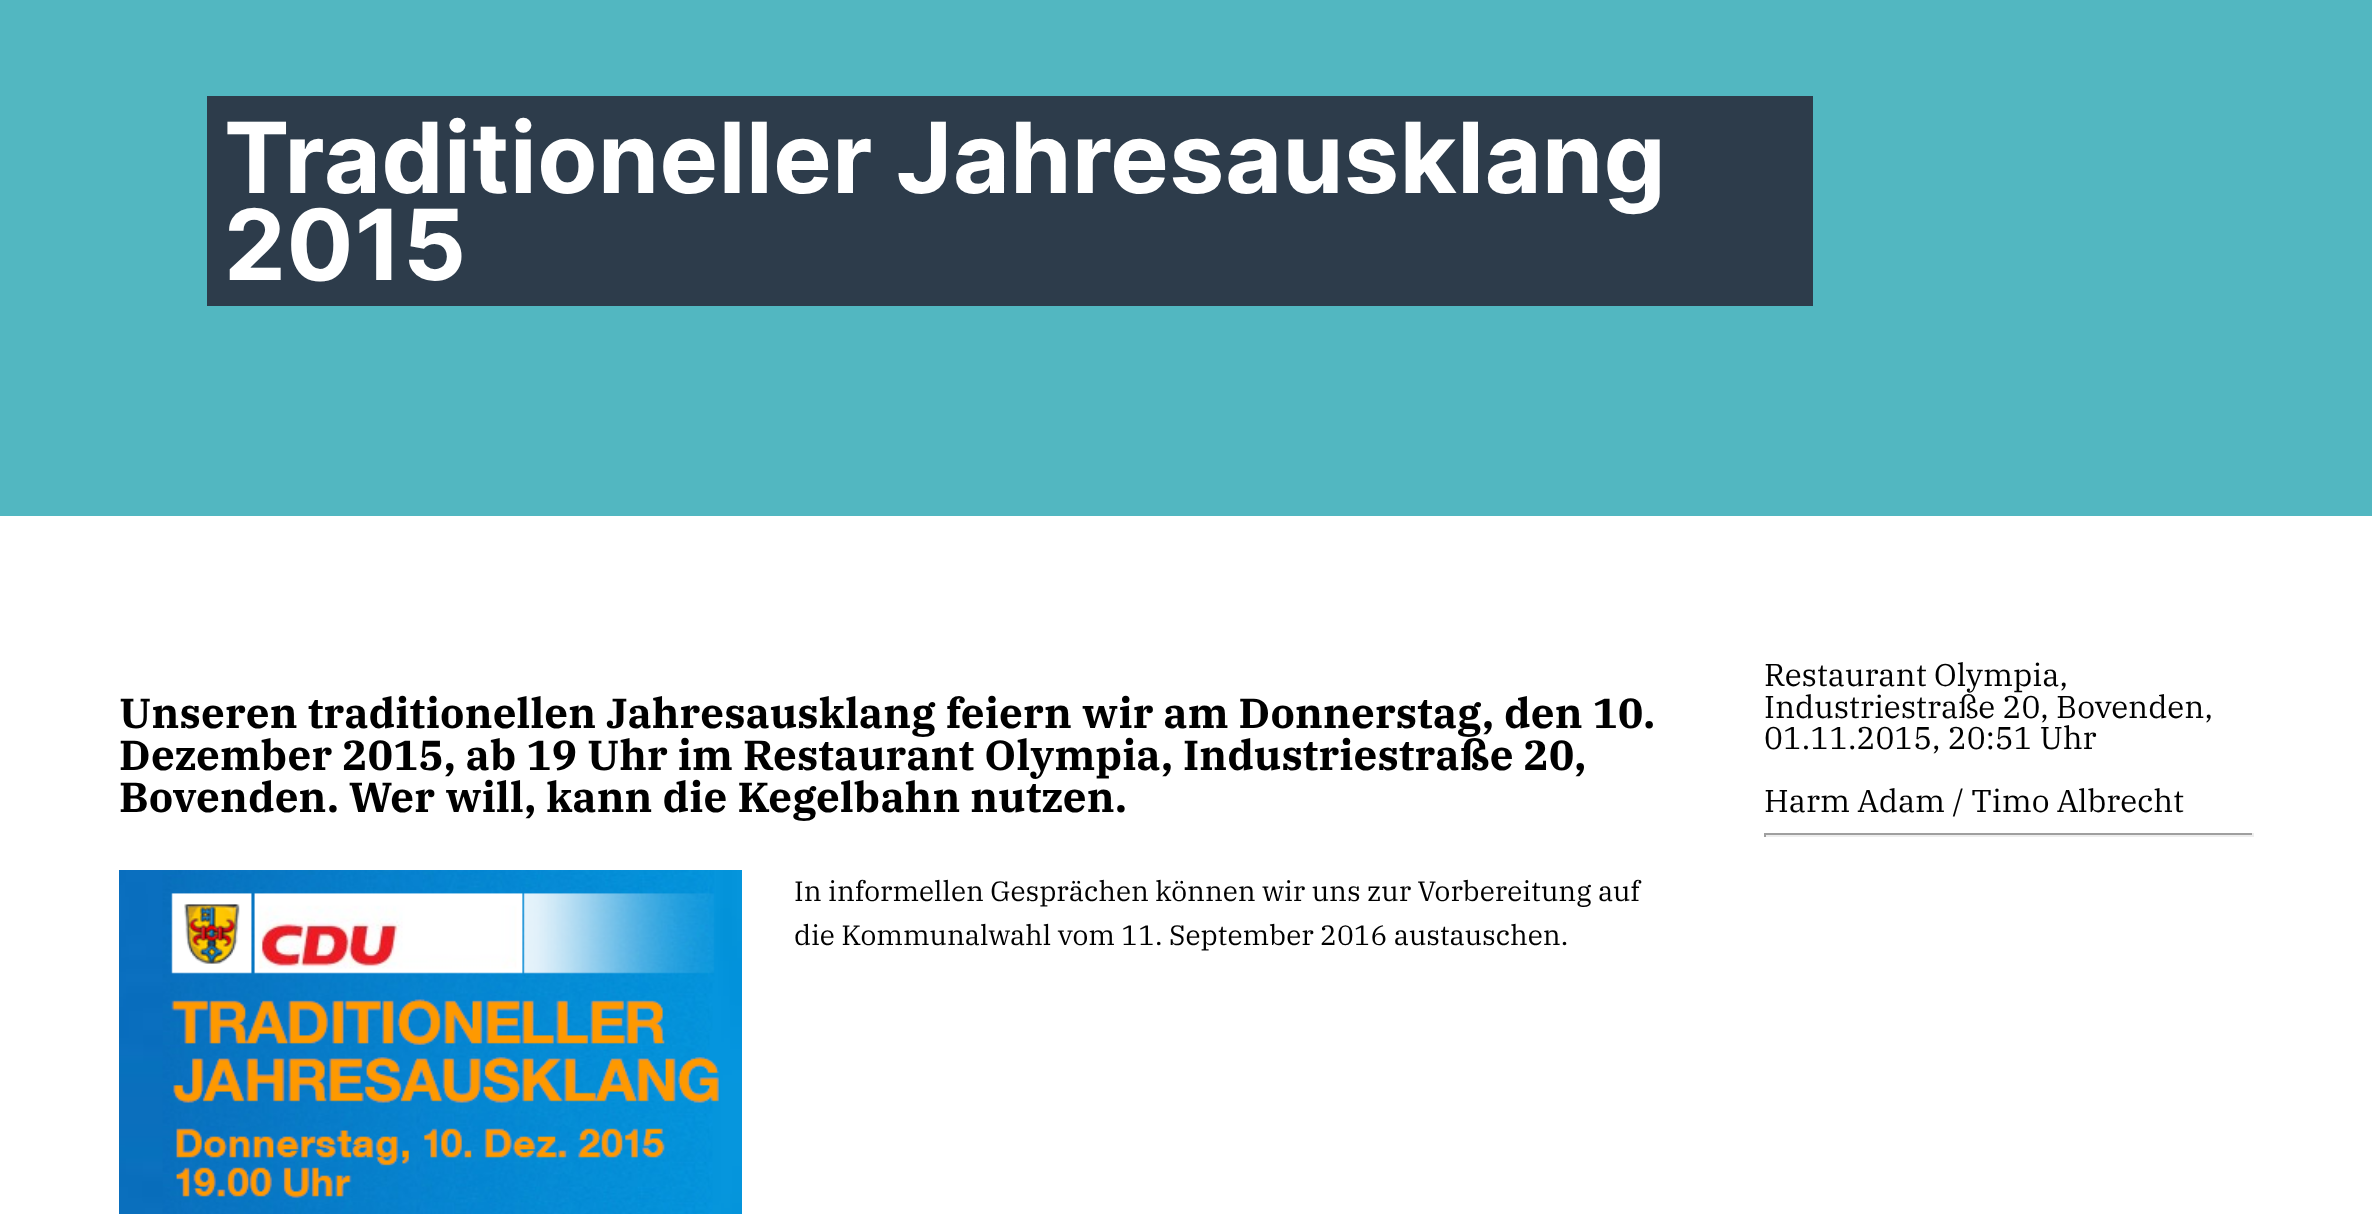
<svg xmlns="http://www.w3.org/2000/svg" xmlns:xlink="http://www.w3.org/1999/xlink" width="2372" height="1214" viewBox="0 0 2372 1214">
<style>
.cls-1{font:bold 98px Inter;letter-spacing:0.6px;fill:#ffffff}
.cls-2{font:bold 42px IBM Plex Serif;letter-spacing:0.18px;fill:#000000}
.cls-3{font:28px IBM Plex Serif;fill:#000000}
.cls-4{font:31.5px IBM Plex Serif;fill:#000000}
</style>
<rect width="100%" height="100%" fill="#ffffff"/>
<rect fill="#52b7c1" x="0" y="0" width="2372" height="516"/>
<rect fill="#2d3c4b" x="207" y="96" width="1606" height="210"/>
<image xlink:href="image0.png" x="119" y="870" width="623" height="344"/>
<rect fill="#9f9f9f" x="1764" y="833" width="490" height="2"/>
<rect fill="#eeeeee" x="2252" y="833" width="2" height="4"/>
<rect fill="#eeeeee" x="1764" y="835" width="490" height="2"/>
<rect fill="#9f9f9f" x="1764" y="833" width="2" height="4"/>
<text class="cls-1"><tspan x="224" y="193">Traditioneller Jahresausklang</tspan><tspan x="224" y="280">2015</tspan></text>
<text class="cls-2"><tspan x="119" y="728">Unseren traditionellen Jahresausklang feiern wir am Donnerstag, den 10.</tspan><tspan x="119" y="770">Dezember 2015, ab 19 Uhr im Restaurant Olympia, Industriestraße 20,</tspan><tspan x="119" y="812">Bovenden. Wer will, kann die Kegelbahn nutzen.</tspan></text>
<text class="cls-3"><tspan x="794" y="901">In informellen Gesprächen können wir uns zur Vorbereitung auf</tspan><tspan x="794" y="945">die Kommunalwahl vom 11. September 2016 austauschen.</tspan></text>
<text class="cls-4"><tspan x="1764" y="686">Restaurant Olympia,</tspan><tspan x="1764" y="718">Industriestraße 20, Bovenden,</tspan><tspan x="1764" y="749">01.11.2015, 20:51 Uhr</tspan></text>
<text class="cls-4" x="1764" y="812">Harm Adam / Timo Albrecht</text>
</svg>
